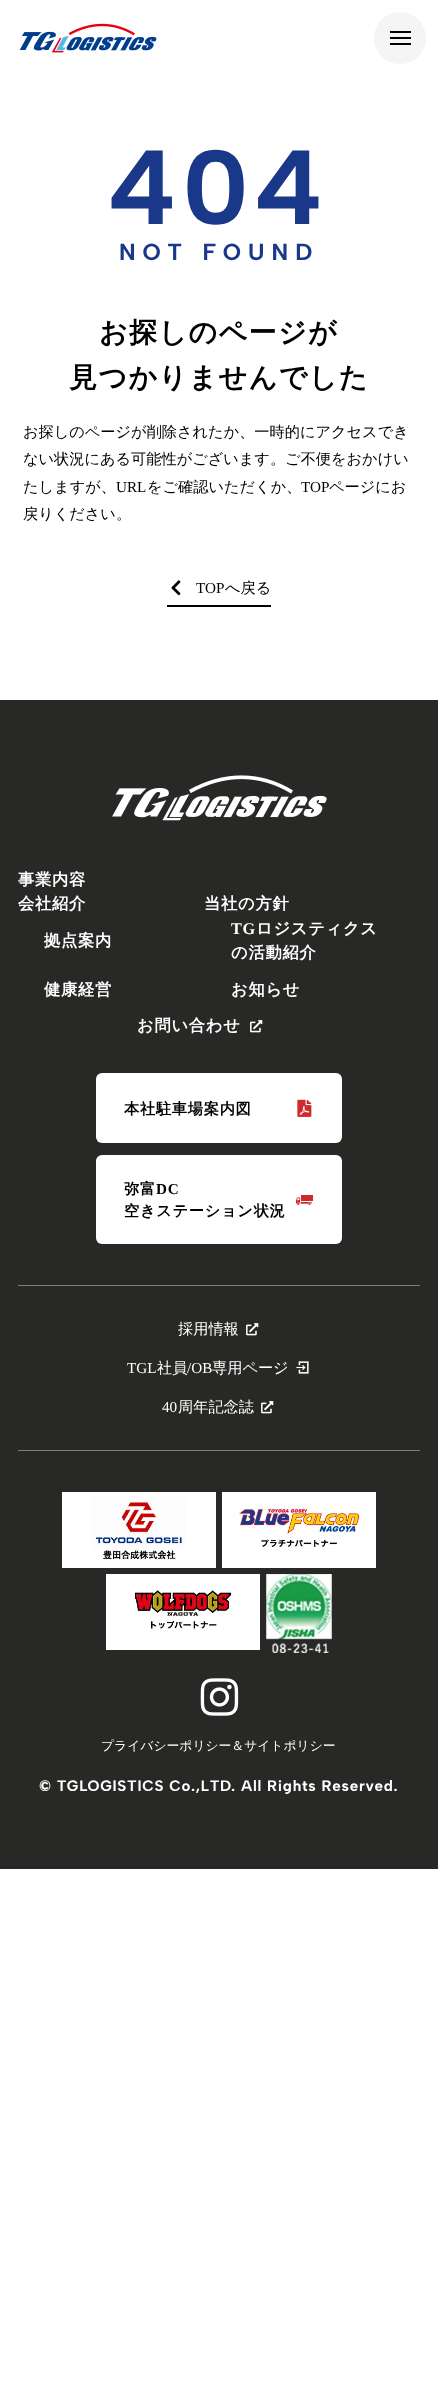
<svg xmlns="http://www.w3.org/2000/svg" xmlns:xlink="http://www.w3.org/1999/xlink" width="438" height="2384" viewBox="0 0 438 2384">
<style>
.cls-1{font:bold 105px Albert Sans;letter-spacing:5px;fill:#193889}
.cls-2{font:bold 23.25px Albert Sans;letter-spacing:7px;fill:#193889}
.cls-3{font:bold 28px WenQuanYi Zen Hei;letter-spacing:1.4px;fill:#000000}
.cls-4{font:500 15.2px WenQuanYi Zen Hei;fill:#000000}
.cls-5{font:15.2px Liberation Serif;fill:#000000}
.cls-6{font:bold 16.25px WenQuanYi Zen Hei;letter-spacing:0.75px;fill:#ffffff}
.cls-7{font:bold 16.25px Liberation Serif;letter-spacing:0.75px;fill:#ffffff}
.cls-8{font:bold 15.2px WenQuanYi Zen Hei;letter-spacing:0.75px;fill:#000000}
.cls-9{font:bold 15.2px Liberation Serif;letter-spacing:0.75px;fill:#000000}
.cls-10{font:500 15.2px WenQuanYi Zen Hei;fill:#ffffff}
.cls-11{font:15.2px Liberation Serif;fill:#ffffff}
.cls-12{font:500 12.8px WenQuanYi Zen Hei;fill:#ffffff}
.cls-13{font:bold 15.2px Albert Sans;letter-spacing:0.75px;fill:#ffffff}
</style>
<rect width="100%" height="100%" fill="#ffffff"/>
<image xlink:href="image0.png" x="19" y="23" width="138" height="30"/>
<circle fill="#f5f5f5" cx="400" cy="38" r="26"/>
<rect fill="#000000" x="390" y="31" width="21" height="2"/>
<rect fill="#000000" x="390" y="37" width="21" height="2"/>
<rect fill="#000000" x="390" y="43" width="21" height="2"/>
<image xlink:href="image1.png" x="171" y="580" width="10" height="16"/>
<rect fill="#000000" x="167" y="605" width="104" height="2"/>
<rect fill="#282826" x="0" y="700" width="438" height="1169"/>
<image xlink:href="image2.png" x="112" y="775" width="215" height="46"/>
<image xlink:href="image3.png" x="250" y="1020" width="13" height="13"/>
<rect fill="#ffffff" x="96" y="1073" width="246" height="70" rx="6"/>
<image xlink:href="image4.png" x="297" y="1099" width="15" height="18"/>
<rect fill="#ffffff" x="96" y="1155" width="246" height="89" rx="6"/>
<image xlink:href="image5.png" x="295" y="1195" width="18" height="10"/>
<rect fill="#7e7e7e" x="18" y="1285" width="402" height="1"/>
<rect fill="#7e7e7e" x="18" y="1450" width="402" height="1"/>
<image xlink:href="image3.png" x="246" y="1323" width="13" height="13"/>
<image xlink:href="image6.png" x="296" y="1361" width="13" height="13"/>
<image xlink:href="image3.png" x="261" y="1401" width="13" height="13"/>
<image xlink:href="image7.png" x="62" y="1492" width="154" height="76"/>
<image xlink:href="image8.png" x="222" y="1492" width="154" height="76"/>
<image xlink:href="image9.png" x="106" y="1574" width="154" height="76"/>
<image xlink:href="image10.png" x="266" y="1574" width="66" height="79"/>
<image xlink:href="image11.png" x="200" y="1678" width="39" height="38"/>
<text class="cls-1" x="108" y="224">404</text>
<text class="cls-2" x="119" y="260">NOT FOUND</text>
<text class="cls-3" x="99" y="342">お探しのページが</text>
<text class="cls-3" x="69" y="387">見つかりませんでした</text>
<text class="cls-4"><tspan x="23" y="437">お探しのページが削除されたか、一時的にアクセスでき</tspan><tspan x="23" y="464">ない状況にある可能性がございます。ご不便をおかけい</tspan><tspan x="23" y="492">たしますが、</tspan></text>
<text class="cls-5" x="116" y="492">URL</text>
<text class="cls-4" x="147" y="492">をご確認いただくか、</text>
<text class="cls-5" x="301" y="492">TOP</text>
<text class="cls-4" x="329" y="492">ページにお</text>
<text class="cls-4" x="23" y="519">戻りください。</text>
<text class="cls-5" x="196" y="593">TOP</text>
<text class="cls-4" x="225" y="593">へ戻る</text>
<text class="cls-6"><tspan x="18" y="885">事業内容</tspan><tspan x="18" y="909">会社紹介</tspan></text>
<text class="cls-6" x="204" y="909">当社の方針</text>
<text class="cls-6" x="44" y="946">拠点案内</text>
<text class="cls-7" x="231" y="934">TG</text>
<text class="cls-6" x="256" y="934">ロジスティクス</text>
<text class="cls-6" x="231" y="958">の活動紹介</text>
<text class="cls-6" x="44" y="995">健康経営</text>
<text class="cls-6" x="231" y="995">お知らせ</text>
<text class="cls-6" x="137" y="1031">お問い合わせ</text>
<text class="cls-8" x="124" y="1114">本社駐車場案内図</text>
<text class="cls-8" x="124" y="1194">弥富</text>
<text class="cls-9" x="156" y="1194">DC</text>
<text class="cls-8" x="124" y="1216">空きステーション状況</text>
<text class="cls-10" x="178" y="1334">採用情報</text>
<text class="cls-11" x="127" y="1373">TGL</text>
<text class="cls-10" x="157" y="1373">社員</text>
<text class="cls-11" x="187" y="1373">/OB</text>
<text class="cls-10" x="212" y="1373">専用ページ</text>
<text class="cls-11" x="162" y="1412">40</text>
<text class="cls-10" x="178" y="1412">周年記念誌</text>
<text class="cls-12" x="101" y="1750">プライバシーポリシー＆サイトポリシー</text>
<text class="cls-13" x="39" y="1791">© TGLOGISTICS Co.,LTD. All Rights Reserved.</text>
</svg>
